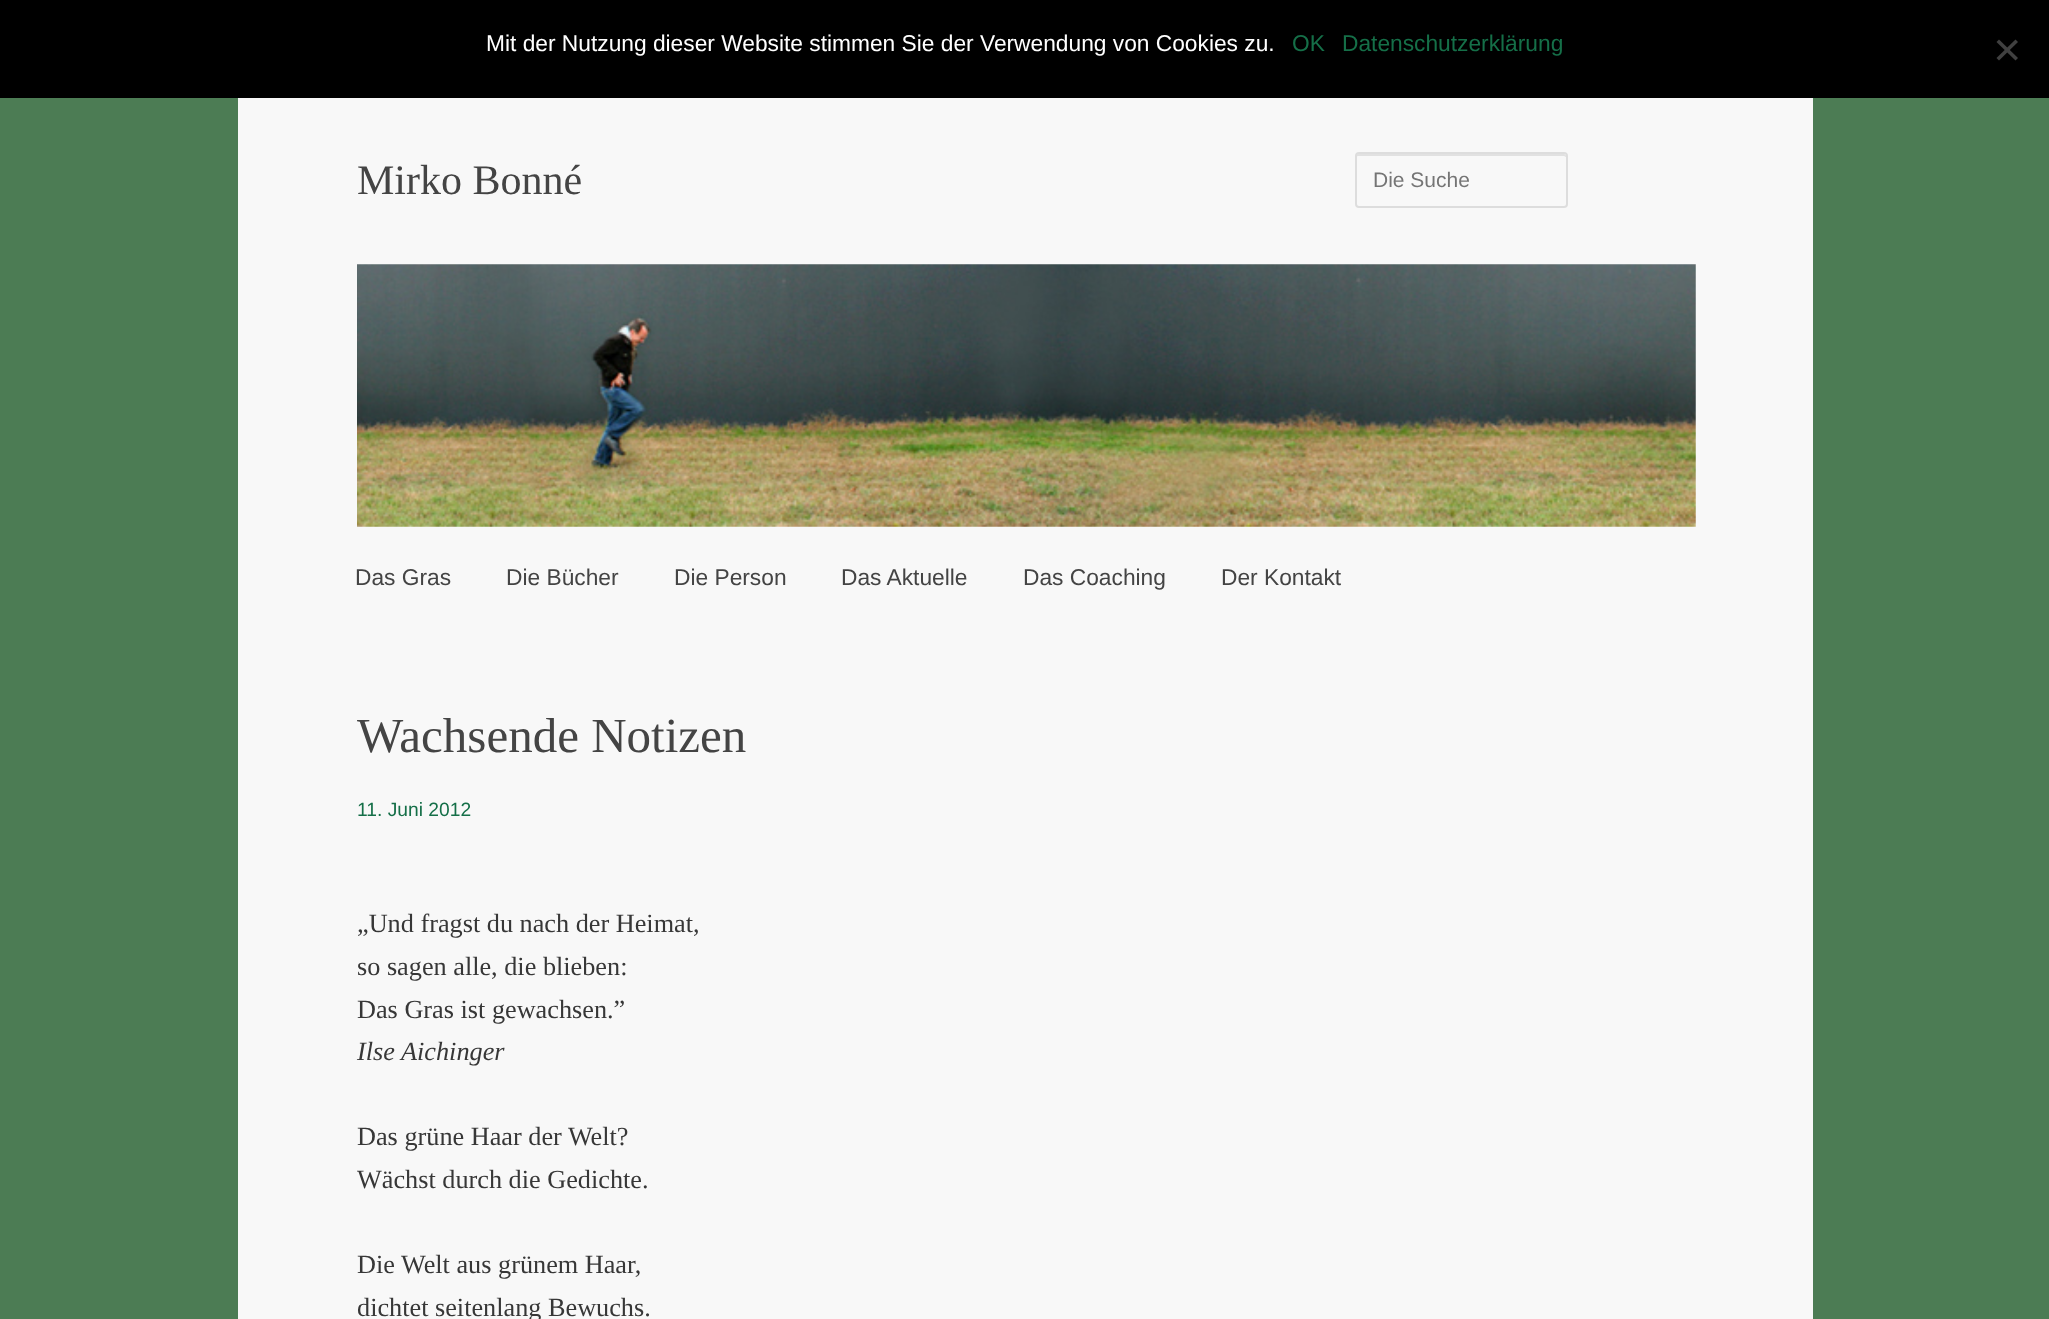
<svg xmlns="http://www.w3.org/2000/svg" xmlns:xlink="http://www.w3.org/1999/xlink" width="2049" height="1319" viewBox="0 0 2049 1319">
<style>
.cls-1{font:22.75px Liberation Sans;fill:#ffffff}
.cls-2{font:22.75px Liberation Sans;fill:#156f48}
.cls-3{font:42px Liberation Serif;fill:#444444}
.cls-4{font:21px Liberation Sans;fill:#757575}
.cls-5{font:22.75px Liberation Sans;fill:#444444}
.cls-6{font:49px Liberation Serif;fill:#444444}
.cls-7{font:19.25px Liberation Sans;fill:#156f48}
.cls-8{font:26.25px Liberation Serif;fill:#373737}
.cls-9{font:italic 26.25px Liberation Serif;fill:#373737}
</style>
<rect width="100%" height="100%" fill="#4c7c54"/>
<rect fill="#000000" x="0" y="0" width="2049" height="98"/>
<path fill="#404040" d="M2015.5 39.5L2018 42L1999 60.5L1996.5 58Z"/>
<path fill="#404040" d="M1996.5 42L1999 39.5L2018 58L2015.5 60.5Z"/>
<rect fill="#f8f8f8" x="238" y="98" width="1575" height="1221"/>
<path fill="#e1e1e1" d="M1358 156H1564L1566 157V158V156C1566 155 1565 154 1564 154H1358C1357 154 1356 155 1356 156V158C1356 157 1357 156 1358 156Z"/>
<rect fill="none" stroke="#dddddd" stroke-width="2" x="1356" y="153" width="211" height="54" rx="3"/>
<image xlink:href="image0.png" x="357" y="264" width="1339" height="263"/>
<text class="cls-1" x="486" y="51">Mit der Nutzung dieser Website stimmen Sie der Verwendung von Cookies zu.</text>
<text class="cls-2" x="1292" y="51">OK</text>
<text class="cls-2" x="1342" y="51">Datenschutzerklärung</text>
<text class="cls-3" x="357" y="194">Mirko Bonné</text>
<text class="cls-4" x="1373" y="187">Die Suche</text>
<text class="cls-5" x="355" y="585">Das Gras</text>
<text class="cls-5" x="506" y="585">Die Bücher</text>
<text class="cls-5" x="674" y="585">Die Person</text>
<text class="cls-5" x="841" y="585">Das Aktuelle</text>
<text class="cls-5" x="1023" y="585">Das Coaching</text>
<text class="cls-5" x="1221" y="585">Der Kontakt</text>
<text class="cls-6" x="357" y="752">Wachsende Notizen</text>
<text class="cls-7" x="357" y="816">11. Juni 2012</text>
<text class="cls-8"><tspan x="357" y="932">„Und fragst du nach der Heimat,</tspan><tspan x="357" y="975">so sagen alle, die blieben:</tspan><tspan x="357" y="1018">Das Gras ist gewachsen.”</tspan></text>
<text class="cls-9" x="357" y="1060">Ilse Aichinger</text>
<text class="cls-8"><tspan x="357" y="1145">Das grüne Haar der Welt?</tspan><tspan x="357" y="1188">Wächst durch die Gedichte.</tspan></text>
<text class="cls-8"><tspan x="357" y="1273">Die Welt aus grünem Haar,</tspan><tspan x="357" y="1316">dichtet seitenlang Bewuchs.</tspan></text>
</svg>
